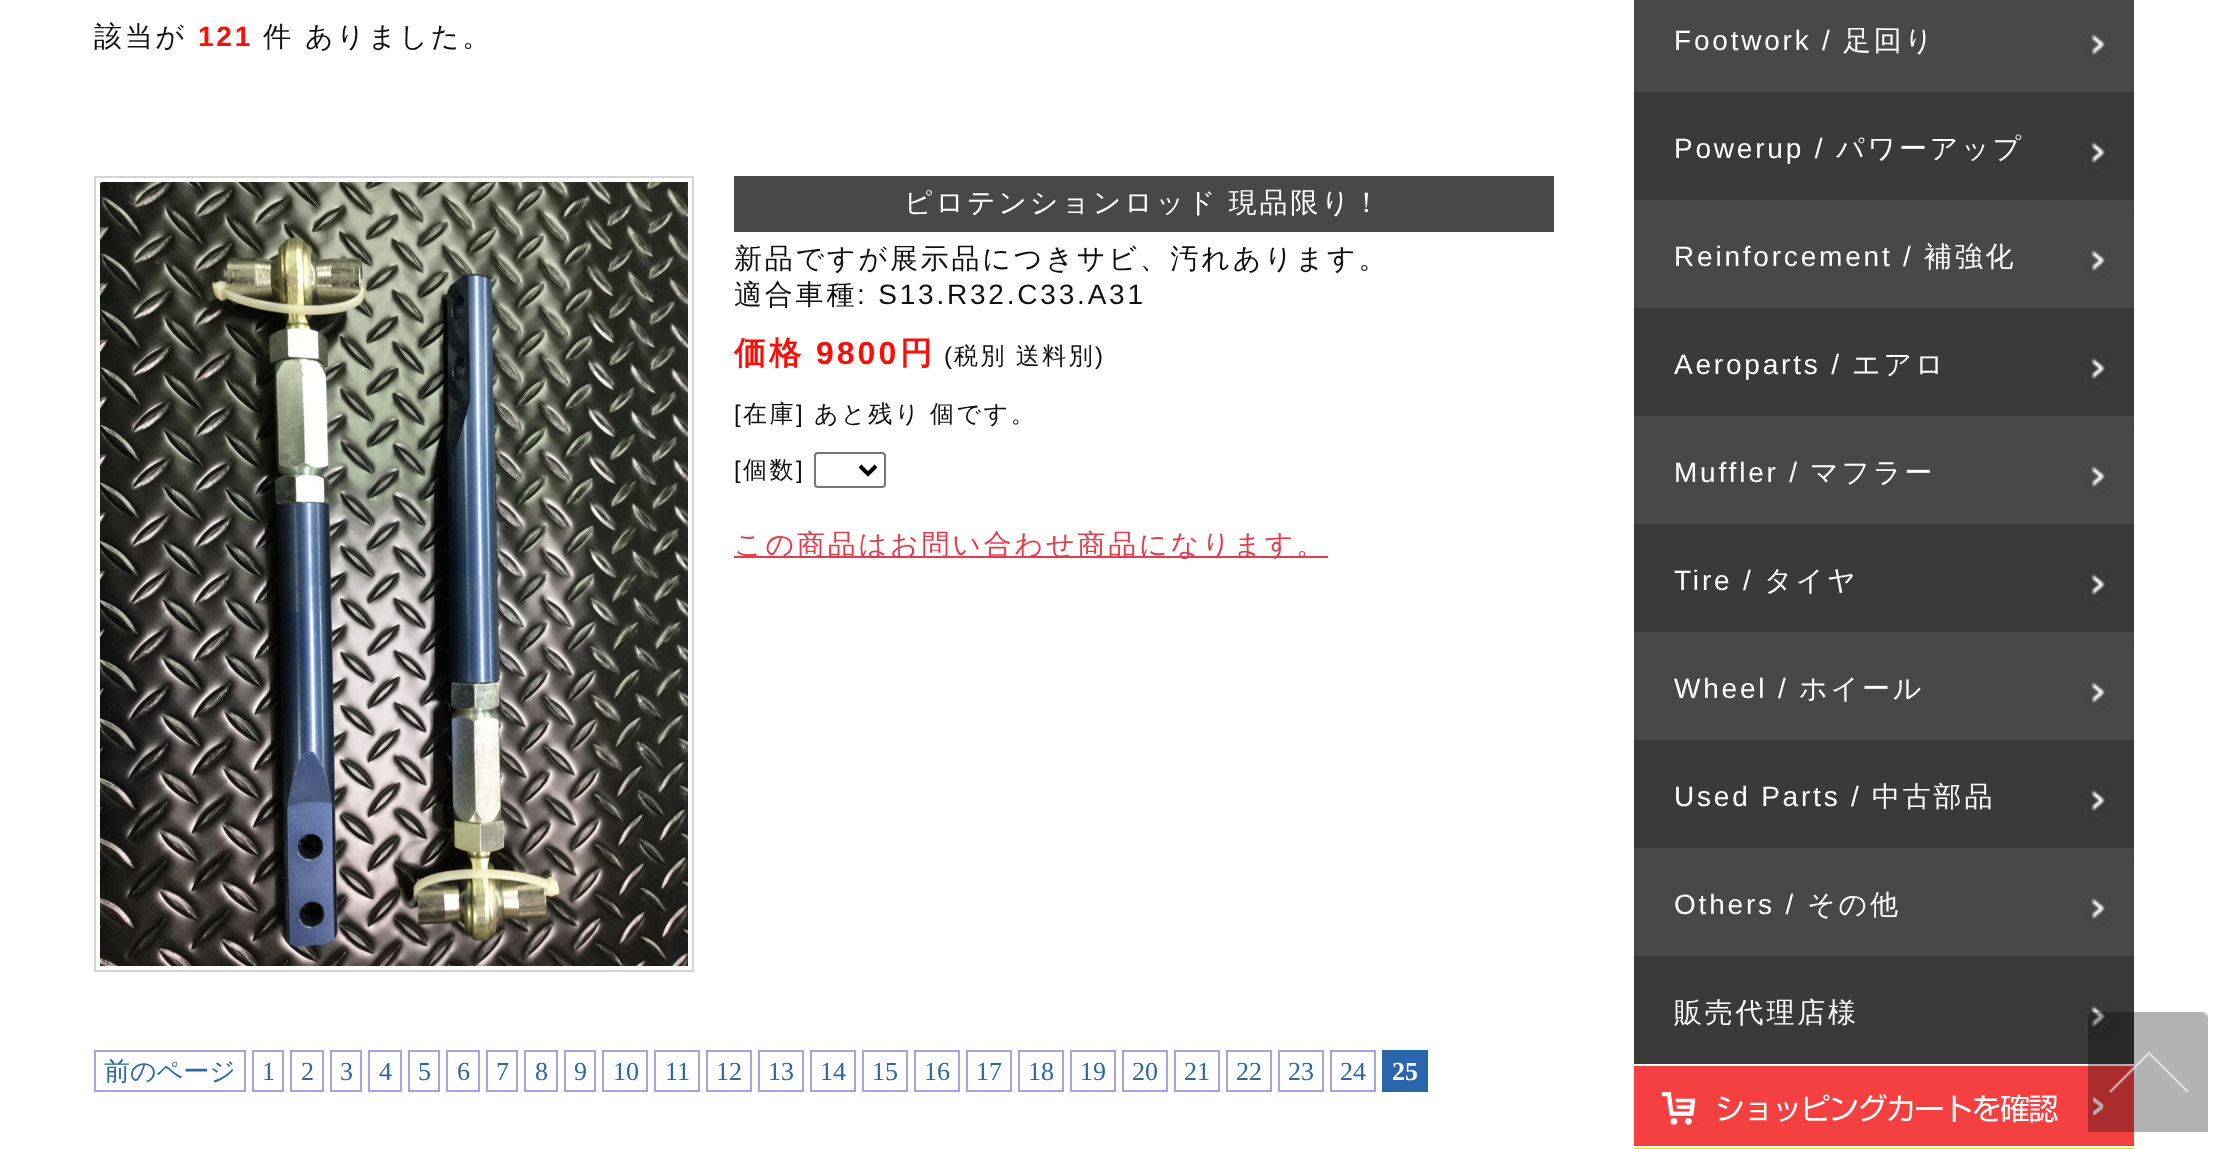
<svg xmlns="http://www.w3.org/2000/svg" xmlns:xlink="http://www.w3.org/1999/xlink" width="2227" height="1149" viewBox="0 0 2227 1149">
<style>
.cls-1{font:500 28px WenQuanYi Zen Hei;letter-spacing:2.8px;fill:#101010}
.cls-2{font:bold 28px Liberation Sans;letter-spacing:2.8px;fill:#fb0e07}
.cls-3{font:500 28px WenQuanYi Zen Hei;letter-spacing:2.8px;fill:#ffffff}
.cls-4{font:28px Liberation Sans;letter-spacing:2.8px;fill:#101010}
.cls-5{font:bold 32px WenQuanYi Zen Hei;letter-spacing:3px;fill:#fb0e07}
.cls-6{font:bold 32px Liberation Sans;letter-spacing:3px;fill:#fb0e07}
.cls-7{font:24px Liberation Sans;letter-spacing:2.5px;fill:#101010}
.cls-8{font:500 24px WenQuanYi Zen Hei;letter-spacing:2.5px;fill:#101010}
.cls-9{font:500 28px WenQuanYi Zen Hei;letter-spacing:2.8px;fill:#e03e4d}
.cls-10{font:500 26px WenQuanYi Zen Hei;fill:#2b66a5}
.cls-11{font:26px Liberation Serif;fill:#2b66a5}
.cls-12{font:bold 26px Liberation Serif;fill:#ffffff}
.cls-13{font:28px Liberation Sans;letter-spacing:2.8px;fill:#ffffff}
</style>
<rect width="100%" height="100%" fill="#ffffff"/>
<rect fill="none" stroke="#d5d5d5" stroke-width="2" x="95" y="177" width="598" height="794"/>
<image xlink:href="image0.png" x="100" y="182" width="588" height="784"/>
<rect fill="#484848" x="734" y="176" width="820" height="56"/>
<rect fill="none" stroke="#767676" stroke-width="2" x="815" y="453" width="70" height="34" rx="3"/>
<path fill="none" stroke="#000000" stroke-width="4" d="M860 466L868 474L876 466"/>
<rect fill="#e03e4d" x="734" y="556" width="594" height="2"/>
<rect fill="none" stroke="#a8a2e1" stroke-width="2" x="95" y="1051" width="150" height="40"/>
<rect fill="none" stroke="#a8a2e1" stroke-width="2" x="253" y="1051" width="30" height="40"/>
<rect fill="none" stroke="#a8a2e1" stroke-width="2" x="291" y="1051" width="32" height="40"/>
<rect fill="none" stroke="#a8a2e1" stroke-width="2" x="331" y="1051" width="30" height="40"/>
<rect fill="none" stroke="#a8a2e1" stroke-width="2" x="369" y="1051" width="32" height="40"/>
<rect fill="none" stroke="#a8a2e1" stroke-width="2" x="409" y="1051" width="30" height="40"/>
<rect fill="none" stroke="#a8a2e1" stroke-width="2" x="447" y="1051" width="32" height="40"/>
<rect fill="none" stroke="#a8a2e1" stroke-width="2" x="487" y="1051" width="30" height="40"/>
<rect fill="none" stroke="#a8a2e1" stroke-width="2" x="525" y="1051" width="32" height="40"/>
<rect fill="none" stroke="#a8a2e1" stroke-width="2" x="565" y="1051" width="30" height="40"/>
<rect fill="none" stroke="#a8a2e1" stroke-width="2" x="603" y="1051" width="44" height="40"/>
<rect fill="none" stroke="#a8a2e1" stroke-width="2" x="655" y="1051" width="44" height="40"/>
<rect fill="none" stroke="#a8a2e1" stroke-width="2" x="707" y="1051" width="44" height="40"/>
<rect fill="none" stroke="#a8a2e1" stroke-width="2" x="759" y="1051" width="44" height="40"/>
<rect fill="none" stroke="#a8a2e1" stroke-width="2" x="811" y="1051" width="44" height="40"/>
<rect fill="none" stroke="#a8a2e1" stroke-width="2" x="863" y="1051" width="44" height="40"/>
<rect fill="none" stroke="#a8a2e1" stroke-width="2" x="915" y="1051" width="44" height="40"/>
<rect fill="none" stroke="#a8a2e1" stroke-width="2" x="967" y="1051" width="44" height="40"/>
<rect fill="none" stroke="#a8a2e1" stroke-width="2" x="1019" y="1051" width="44" height="40"/>
<rect fill="none" stroke="#a8a2e1" stroke-width="2" x="1071" y="1051" width="44" height="40"/>
<rect fill="none" stroke="#a8a2e1" stroke-width="2" x="1123" y="1051" width="44" height="40"/>
<rect fill="none" stroke="#a8a2e1" stroke-width="2" x="1175" y="1051" width="44" height="40"/>
<rect fill="none" stroke="#a8a2e1" stroke-width="2" x="1227" y="1051" width="44" height="40"/>
<rect fill="none" stroke="#a8a2e1" stroke-width="2" x="1279" y="1051" width="44" height="40"/>
<rect fill="none" stroke="#a8a2e1" stroke-width="2" x="1331" y="1051" width="44" height="40"/>
<rect fill="#2a66ac" stroke="#2b66a5" stroke-width="2" x="1383" y="1051" width="44" height="40"/>
<image xlink:href="image1.png" x="1634" y="0" width="500" height="92"/>
<image xlink:href="image2.png" x="1634" y="92" width="500" height="108"/>
<image xlink:href="image3.png" x="1634" y="200" width="500" height="108"/>
<image xlink:href="image2.png" x="1634" y="308" width="500" height="108"/>
<image xlink:href="image3.png" x="1634" y="416" width="500" height="108"/>
<image xlink:href="image2.png" x="1634" y="524" width="500" height="108"/>
<image xlink:href="image3.png" x="1634" y="632" width="500" height="108"/>
<image xlink:href="image2.png" x="1634" y="740" width="500" height="108"/>
<image xlink:href="image3.png" x="1634" y="848" width="500" height="108"/>
<image xlink:href="image2.png" x="1634" y="956" width="500" height="108"/>
<image xlink:href="image4.png" x="1634" y="1066" width="500" height="80"/>
<rect fill="#fdd100" x="1634" y="1148" width="500" height="1"/>
<image xlink:href="image5.png" x="2088" y="1012" width="120" height="120"/>
<text class="cls-1" x="94" y="46">該当が</text>
<text class="cls-2" x="198" y="46">121</text>
<text class="cls-1" x="263" y="46">件 ありました。</text>
<text class="cls-3" x="904" y="212" word-spacing="-1">ピロテンションロッド 現品限り！</text>
<text class="cls-1"><tspan x="734" y="268">新品ですが展示品につきサビ、汚れあります。</tspan><tspan x="734" y="304">適合車種</tspan></text>
<text class="cls-4" x="857" y="304">: S13.R32.C33.A31</text>
<text class="cls-5" x="734" y="364">価格</text>
<text class="cls-6" x="816" y="364">9800</text>
<text class="cls-5" x="900" y="364">円</text>
<text class="cls-7" x="944" y="364">(</text>
<text class="cls-8" x="954" y="364" word-spacing="-1">税別 送料別</text>
<text class="cls-7" x="1095" y="364">)</text>
<text class="cls-7" x="734" y="422">[</text>
<text class="cls-8" x="743" y="422">在庫</text>
<text class="cls-7" x="796" y="422">]</text>
<text class="cls-8" x="814" y="422">あと残り</text>
<text class="cls-8" x="930" y="422">個です。</text>
<text class="cls-7" x="734" y="478">[</text>
<text class="cls-8" x="743" y="478">個数</text>
<text class="cls-7" x="796" y="478">]</text>
<text class="cls-9" x="734" y="554">この商品はお問い合わせ商品になります。</text>
<text class="cls-10" x="104" y="1080">前のページ</text>
<text class="cls-11" x="262" y="1080">1</text>
<text class="cls-11" x="301" y="1080">2</text>
<text class="cls-11" x="340" y="1080">3</text>
<text class="cls-11" x="379" y="1080">4</text>
<text class="cls-11" x="418" y="1080">5</text>
<text class="cls-11" x="457" y="1080">6</text>
<text class="cls-11" x="496" y="1080">7</text>
<text class="cls-11" x="535" y="1080">8</text>
<text class="cls-11" x="574" y="1080">9</text>
<text class="cls-11" x="613" y="1080">10</text>
<text class="cls-11" x="665" y="1080">11</text>
<text class="cls-11" x="716" y="1080">12</text>
<text class="cls-11" x="768" y="1080">13</text>
<text class="cls-11" x="820" y="1080">14</text>
<text class="cls-11" x="872" y="1080">15</text>
<text class="cls-11" x="924" y="1080">16</text>
<text class="cls-11" x="976" y="1080">17</text>
<text class="cls-11" x="1028" y="1080">18</text>
<text class="cls-11" x="1080" y="1080">19</text>
<text class="cls-11" x="1132" y="1080">20</text>
<text class="cls-11" x="1184" y="1080">21</text>
<text class="cls-11" x="1236" y="1080">22</text>
<text class="cls-11" x="1288" y="1080">23</text>
<text class="cls-11" x="1340" y="1080">24</text>
<text class="cls-12" x="1392" y="1080">25</text>
<text class="cls-13" x="1674" y="50">Footwork /</text>
<text class="cls-3" x="1843" y="50">足回り</text>
<text class="cls-13" x="1674" y="158">Powerup /</text>
<text class="cls-3" x="1836" y="158">パワーアップ</text>
<text class="cls-13" x="1674" y="266">Reinforcement /</text>
<text class="cls-3" x="1924" y="266">補強化</text>
<text class="cls-13" x="1674" y="374">Aeroparts /</text>
<text class="cls-3" x="1852" y="374">エアロ</text>
<text class="cls-13" x="1674" y="482">Muffler /</text>
<text class="cls-3" x="1810" y="482">マフラー</text>
<text class="cls-13" x="1674" y="590">Tire /</text>
<text class="cls-3" x="1764" y="590">タイヤ</text>
<text class="cls-13" x="1674" y="698">Wheel /</text>
<text class="cls-3" x="1799" y="698">ホイール</text>
<text class="cls-13" x="1674" y="806">Used Parts /</text>
<text class="cls-3" x="1872" y="806">中古部品</text>
<text class="cls-13" x="1674" y="914">Others /</text>
<text class="cls-3" x="1807" y="914">その他</text>
<text class="cls-3" x="1674" y="1022">販売代理店様</text>
</svg>
